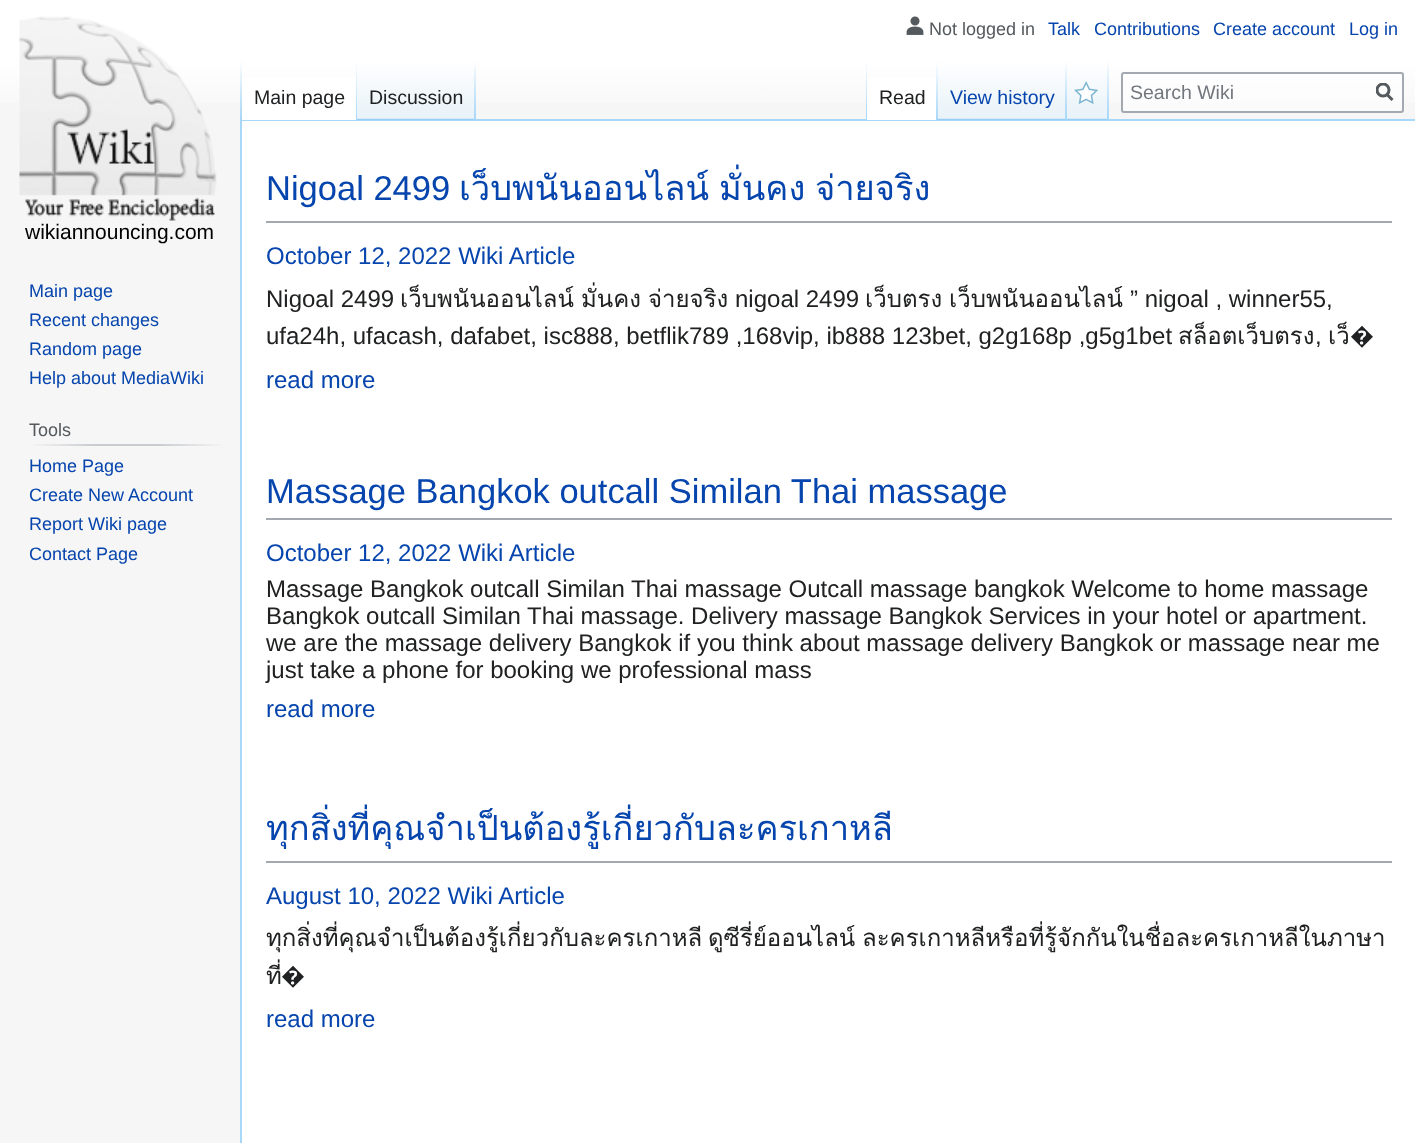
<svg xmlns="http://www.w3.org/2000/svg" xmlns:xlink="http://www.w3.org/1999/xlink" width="1415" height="1143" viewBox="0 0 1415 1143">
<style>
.cls-1{font:18px Liberation Sans;fill:#54595d}
.cls-2{font:18px Liberation Sans;fill:#0645ad}
.cls-3{font:19.5px Liberation Sans;fill:#202122}
.cls-4{font:19.5px Liberation Sans;fill:#0645ad}
.cls-5{font:19.5px Liberation Sans;fill:#72777d}
.cls-6{font:21px Liberation Sans;fill:#000000}
.cls-7{font:34.5px Liberation Sans;fill:#0645ad}
.cls-8{font:34.5px Loma;fill:#0645ad}
.cls-9{font:24px Liberation Sans;fill:#0645ad}
.cls-10{font:24px Liberation Sans;fill:#202122}
.cls-11{font:24px Loma;fill:#202122}
.cls-12{font:24px Noto Sans;fill:#202122}
</style>
<defs>
<linearGradient id="g1" gradientUnits="userSpaceOnUse" x1="708" y1="0" x2="708" y2="120"><stop offset="0.5" stop-color="#ffffff"/><stop offset="1" stop-color="#f6f6f6"/></linearGradient>
<linearGradient id="g2" gradientUnits="userSpaceOnUse" x1="241" y1="60" x2="241" y2="120"><stop offset="0" stop-color="#a7d7f9" stop-opacity="0"/><stop offset="1" stop-color="#a7d7f9"/></linearGradient>
<linearGradient id="g3" gradientUnits="userSpaceOnUse" x1="356" y1="60" x2="356" y2="120"><stop offset="0" stop-color="#ffffff"/><stop offset="1" stop-color="#a7d7f9"/></linearGradient>
<linearGradient id="g4" gradientUnits="userSpaceOnUse" x1="416" y1="120" x2="416" y2="60"><stop offset="0" stop-color="#77c1f6"/><stop offset="0.03" stop-color="#e8f2f8"/><stop offset="1" stop-color="#ffffff"/></linearGradient>
<linearGradient id="g5" gradientUnits="userSpaceOnUse" x1="475" y1="60" x2="475" y2="120"><stop offset="0" stop-color="#a7d7f9" stop-opacity="0"/><stop offset="1" stop-color="#a7d7f9"/></linearGradient>
<linearGradient id="g6" gradientUnits="userSpaceOnUse" x1="866" y1="60" x2="866" y2="120"><stop offset="0" stop-color="#a7d7f9" stop-opacity="0"/><stop offset="1" stop-color="#a7d7f9"/></linearGradient>
<linearGradient id="g7" gradientUnits="userSpaceOnUse" x1="937" y1="60" x2="937" y2="120"><stop offset="0" stop-color="#ffffff"/><stop offset="1" stop-color="#a7d7f9"/></linearGradient>
<linearGradient id="g8" gradientUnits="userSpaceOnUse" x1="1002" y1="120" x2="1002" y2="60"><stop offset="0" stop-color="#77c1f6"/><stop offset="0.03" stop-color="#e8f2f8"/><stop offset="1" stop-color="#ffffff"/></linearGradient>
<linearGradient id="g9" gradientUnits="userSpaceOnUse" x1="1066" y1="60" x2="1066" y2="120"><stop offset="0" stop-color="#a7d7f9" stop-opacity="0"/><stop offset="1" stop-color="#a7d7f9"/></linearGradient>
<linearGradient id="g10" gradientUnits="userSpaceOnUse" x1="1088" y1="120" x2="1088" y2="60"><stop offset="0" stop-color="#77c1f6"/><stop offset="0.03" stop-color="#e8f2f8"/><stop offset="1" stop-color="#ffffff"/></linearGradient>
<linearGradient id="g11" gradientUnits="userSpaceOnUse" x1="1108" y1="60" x2="1108" y2="120"><stop offset="0" stop-color="#a7d7f9" stop-opacity="0"/><stop offset="1" stop-color="#a7d7f9"/></linearGradient>
<clipPath id="clip1"><rect x="1376" y="83" width="18" height="19"/></clipPath>
<linearGradient id="g12" gradientUnits="userSpaceOnUse" x1="29" y1="445" x2="225" y2="445"><stop offset="0" stop-color="#f6f6f6"/><stop offset="0.33" stop-color="#c8ccd1"/><stop offset="0.66" stop-color="#c8ccd1"/><stop offset="1" stop-color="#f6f6f6"/></linearGradient>
<clipPath id="clip2"><rect x="266" y="783" width="1126" height="78"/></clipPath>
</defs>
<rect width="100%" height="100%" fill="#f6f6f6"/>
<rect fill="url(#g1)" x="0" y="0" width="1415" height="103"/>
<image xlink:href="image0.png" x="906" y="16" width="18" height="19"/>
<rect fill="#a7d7f9" x="240" y="119" width="1175" height="2"/>
<rect fill="#a7d7f9" x="240" y="119" width="2" height="1024"/>
<rect fill="url(#g2)" x="240" y="60" width="2" height="60"/>
<rect fill="#ffffff" x="242" y="77" width="114" height="43"/>
<rect fill="url(#g3)" x="356" y="60" width="1" height="60"/>
<rect fill="url(#g4)" x="357" y="69" width="119" height="51"/>
<rect fill="url(#g5)" x="474" y="60" width="2" height="60"/>
<rect fill="url(#g6)" x="866" y="60" width="1" height="60"/>
<rect fill="#ffffff" x="867" y="77" width="69" height="43"/>
<rect fill="url(#g7)" x="936" y="60" width="2" height="60"/>
<rect fill="url(#g8)" x="938" y="69" width="129" height="51"/>
<rect fill="url(#g9)" x="1065" y="60" width="2" height="60"/>
<rect fill="url(#g10)" x="1067" y="69" width="42" height="51"/>
<rect fill="url(#g11)" x="1107" y="60" width="2" height="60"/>
<image xlink:href="image1.png" x="1074" y="81" width="24" height="23"/>
<rect fill="#ffffff" fill-opacity="0.5" stroke="#a2a9b1" stroke-width="2" x="1122" y="73" width="281" height="39" rx="2"/>
<path fill="none" stroke="#54595d" stroke-width="3" d="M1392.5 100L1386.5 94"/>
<g clip-path="url(#clip1)">
<circle fill="none" stroke="#54595d" stroke-width="3" cx="1383" cy="90" r="6"/>
</g>
<image xlink:href="image2.png" x="19" y="16" width="198" height="205"/>
<rect fill="url(#g12)" x="29" y="444" width="196" height="2"/>
<rect fill="#ffffff" x="242" y="121" width="1173" height="1022"/>
<rect fill="#a2a9b1" x="266" y="221" width="1126" height="2"/>
<rect fill="#a2a9b1" x="266" y="518" width="1126" height="2"/>
<rect fill="#a2a9b1" x="266" y="861" width="1126" height="2"/>
<text class="cls-1" x="929" y="35">Not logged in</text>
<text class="cls-2" x="1048" y="35">Talk</text>
<text class="cls-2" x="1094" y="35">Contributions</text>
<text class="cls-2" x="1213" y="35">Create account</text>
<text class="cls-2" x="1349" y="35">Log in</text>
<text class="cls-3" x="254" y="104">Main page</text>
<text class="cls-3" x="369" y="104">Discussion</text>
<text class="cls-3" x="879" y="104">Read</text>
<text class="cls-4" x="950" y="104">View history</text>
<text class="cls-5" x="1130" y="99">Search Wiki</text>
<text class="cls-6" x="25" y="239">wikiannouncing.com</text>
<text class="cls-2"><tspan x="29" y="297">Main page</tspan><tspan x="29" y="326">Recent changes</tspan><tspan x="29" y="355">Random page</tspan><tspan x="29" y="384">Help about MediaWiki</tspan></text>
<text class="cls-1" x="29" y="436">Tools</text>
<text class="cls-2"><tspan x="29" y="472">Home Page</tspan><tspan x="29" y="501">Create New Account</tspan><tspan x="29" y="530">Report Wiki page</tspan><tspan x="29" y="560">Contact Page</tspan></text>
<text class="cls-7" x="266" y="200">Nigoal 2499</text>
<text class="cls-8" x="459" y="200">เว็บพนันออนไลน์</text>
<text class="cls-8" x="719" y="200">มั่นคง</text>
<text class="cls-8" x="815" y="200">จ่ายจริง</text>
<text class="cls-9" x="266" y="264">October 12, 2022 Wiki Article</text>
<text class="cls-10" x="266" y="307">Nigoal 2499</text>
<text class="cls-11" x="400" y="307">เว็บพนันออนไลน์</text>
<text class="cls-11" x="581" y="307">มั่นคง</text>
<text class="cls-11" x="648" y="307">จ่ายจริง</text>
<text class="cls-10" x="735" y="307">nigoal 2499</text>
<text class="cls-11" x="865" y="307">เว็บตรง</text>
<text class="cls-11" x="949" y="307">เว็บพนันออนไลน์</text>
<text class="cls-10" x="1130" y="307">” nigoal , winner55,</text>
<text class="cls-10" x="266" y="344">ufa24h, ufacash, dafabet, isc888, betflik789 ,168vip, ib888 123bet, g2g168p ,g5g1bet</text>
<text class="cls-11" x="1178" y="344">สล็อตเว็บตรง</text>
<text class="cls-10" x="1315" y="344">,</text>
<text class="cls-11" x="1328" y="344">เว็</text>
<text class="cls-12" x="1350" y="344">�</text>
<text class="cls-9" x="266" y="388">read more</text>
<text class="cls-7" x="266" y="503">Massage Bangkok outcall Similan Thai massage</text>
<text class="cls-9" x="266" y="561">October 12, 2022 Wiki Article</text>
<text class="cls-10"><tspan x="266" y="597">Massage Bangkok outcall Similan Thai massage Outcall massage bangkok Welcome to home massage</tspan><tspan x="266" y="624">Bangkok outcall Similan Thai massage. Delivery massage Bangkok Services in your hotel or apartment.</tspan><tspan x="266" y="651">we are the massage delivery Bangkok if you think about massage delivery Bangkok or massage near me</tspan><tspan x="266" y="678">just take a phone for booking we professional mass</tspan></text>
<text class="cls-9" x="266" y="717">read more</text>
<g clip-path="url(#clip2)">
<text class="cls-8" x="266" y="840">ทุกสิ่งที่คุณจำเป็นต้องรู้เกี่ยวกับละครเกาหลี</text>
</g>
<text class="cls-9" x="266" y="904">August 10, 2022 Wiki Article</text>
<text class="cls-11" x="266" y="946">ทุกสิ่งที่คุณจำเป็นต้องรู้เกี่ยวกับละครเกาหลี</text>
<text class="cls-11" x="708" y="946">ดูซีรี่ย์ออนไลน์</text>
<text class="cls-11" x="862" y="946">ละครเกาหลีหรือที่รู้จักกันในชื่อละครเกาหลีในภาษา</text>
<text class="cls-11" x="266" y="984">ที่</text>
<text class="cls-12" x="281" y="984">�</text>
<text class="cls-9" x="266" y="1027">read more</text>
</svg>
